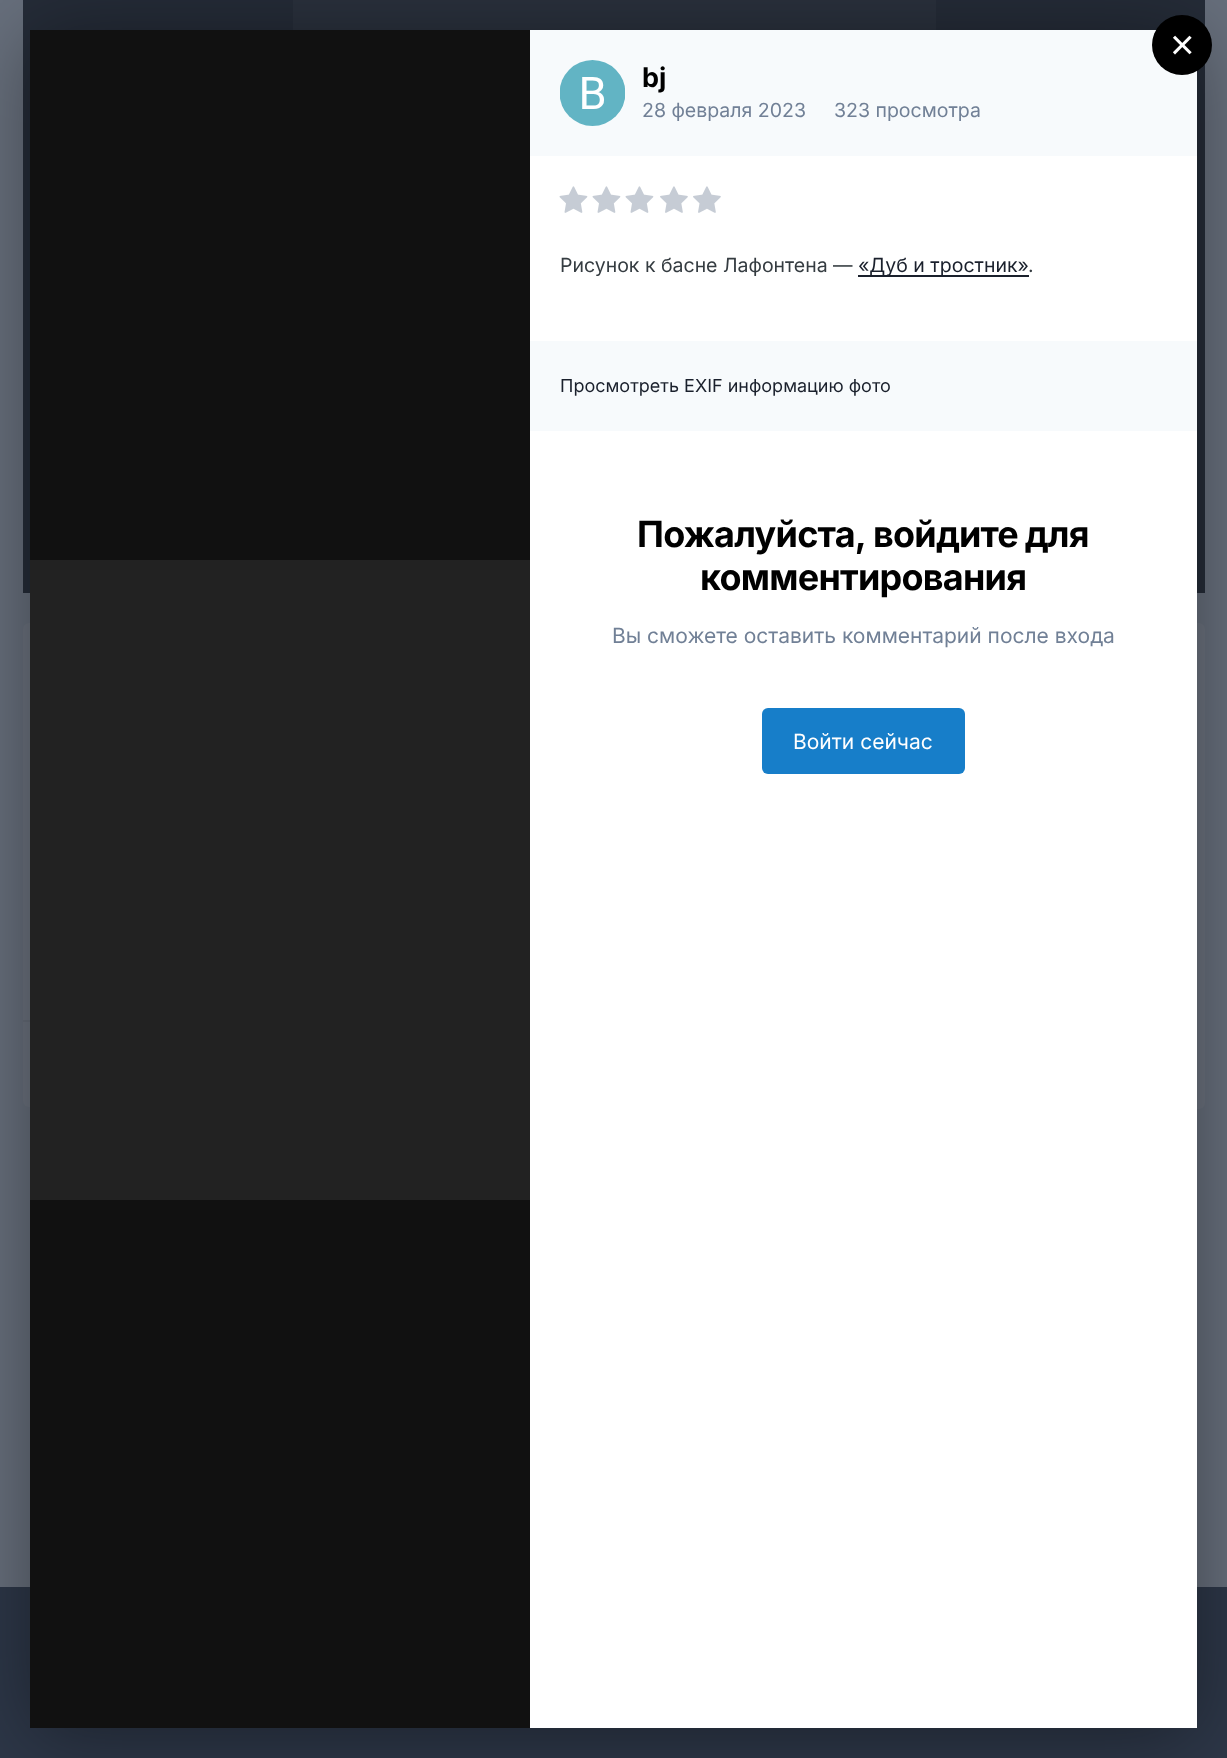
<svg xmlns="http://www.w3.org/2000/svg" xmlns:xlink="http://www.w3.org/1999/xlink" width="1227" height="1758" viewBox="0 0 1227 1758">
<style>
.cls-1{font:42px Liberation Sans;fill:#ffffff}
.cls-2{font:bold 27px Inter;fill:#000000}
.cls-3{font:19.5px Inter;fill:#718096}
.cls-4{font:19.5px Inter;fill:#353c41}
.cls-5{font:19.5px Inter;fill:#1a202c}
.cls-6{font:18px Inter;fill:#1a202c}
.cls-7{font:bold 36px Inter;letter-spacing:-0.75px;fill:#000000}
.cls-8{font:21px Inter;fill:#718096}
.cls-9{font:21px Inter;fill:#ffffff}
</style>
<rect width="100%" height="100%" fill="#676f7c"/>
<rect fill="#252c38" x="23" y="0" width="1182" height="593"/>
<rect fill="#2a313d" x="293" y="0" width="643" height="30"/>
<rect fill="#6c737f" x="23" y="623" width="744" height="484" rx="6"/>
<rect fill="#666d79" x="23" y="1020" width="7" height="2"/>
<rect fill="#6c737f" x="803" y="623" width="402" height="486" rx="6"/>
<rect fill="#2d3748" x="0" y="1587" width="1227" height="171"/>
<rect fill="#000000" fill-opacity="0.4" filter="blur(41px)" x="30" y="38" width="1167" height="1698"/>
<rect fill="#f7fafc" x="530" y="30" width="667" height="126"/>
<circle fill="#000000" cx="1182" cy="45" r="30"/>
<rect fill="#111111" x="30" y="30" width="500" height="1698"/>
<rect fill="#ffffff" x="530" y="156" width="667" height="1572"/>
<circle fill="#ffffff" cx="593" cy="93" r="33"/>
<image xlink:href="image0.png" x="560" y="60" width="66" height="66"/>
<image xlink:href="image1.png" x="559" y="186" width="29" height="27"/>
<image xlink:href="image1.png" x="592" y="186" width="29" height="27"/>
<image xlink:href="image1.png" x="625" y="186" width="29" height="27"/>
<image xlink:href="image2.png" x="660" y="186" width="28" height="27"/>
<image xlink:href="image2.png" x="693" y="186" width="28" height="27"/>
<rect fill="#1a202c" x="858" y="275" width="171" height="2"/>
<rect fill="#f7fafc" x="530" y="341" width="667" height="90"/>
<rect fill="#177ec9" x="762" y="708" width="203" height="66" rx="6"/>
<rect fill="#222222" x="30" y="560" width="500" height="640"/>
<text class="cls-1" x="1170" y="59">×</text>
<text class="cls-2" x="642" y="87">bj</text>
<text class="cls-3" x="642" y="117">28 февраля 2023</text>
<text class="cls-3" x="834" y="117">323 просмотра</text>
<text class="cls-4" x="560" y="272">Рисунок к басне Лафонтена —</text>
<text class="cls-5" x="858" y="272">«Дуб и тростник»</text>
<text class="cls-4" x="1028" y="272">.</text>
<text class="cls-6" x="560" y="392">Просмотреть EXIF информацию фото</text>
<text class="cls-7" x="637" y="547" word-spacing="-1">Пожалуйста, войдите для</text>
<text class="cls-7" x="700" y="590">комментирования</text>
<text class="cls-8" x="612" y="643">Вы сможете оставить комментарий после входа</text>
<text class="cls-9" x="793" y="749">Войти сейчас</text>
</svg>
